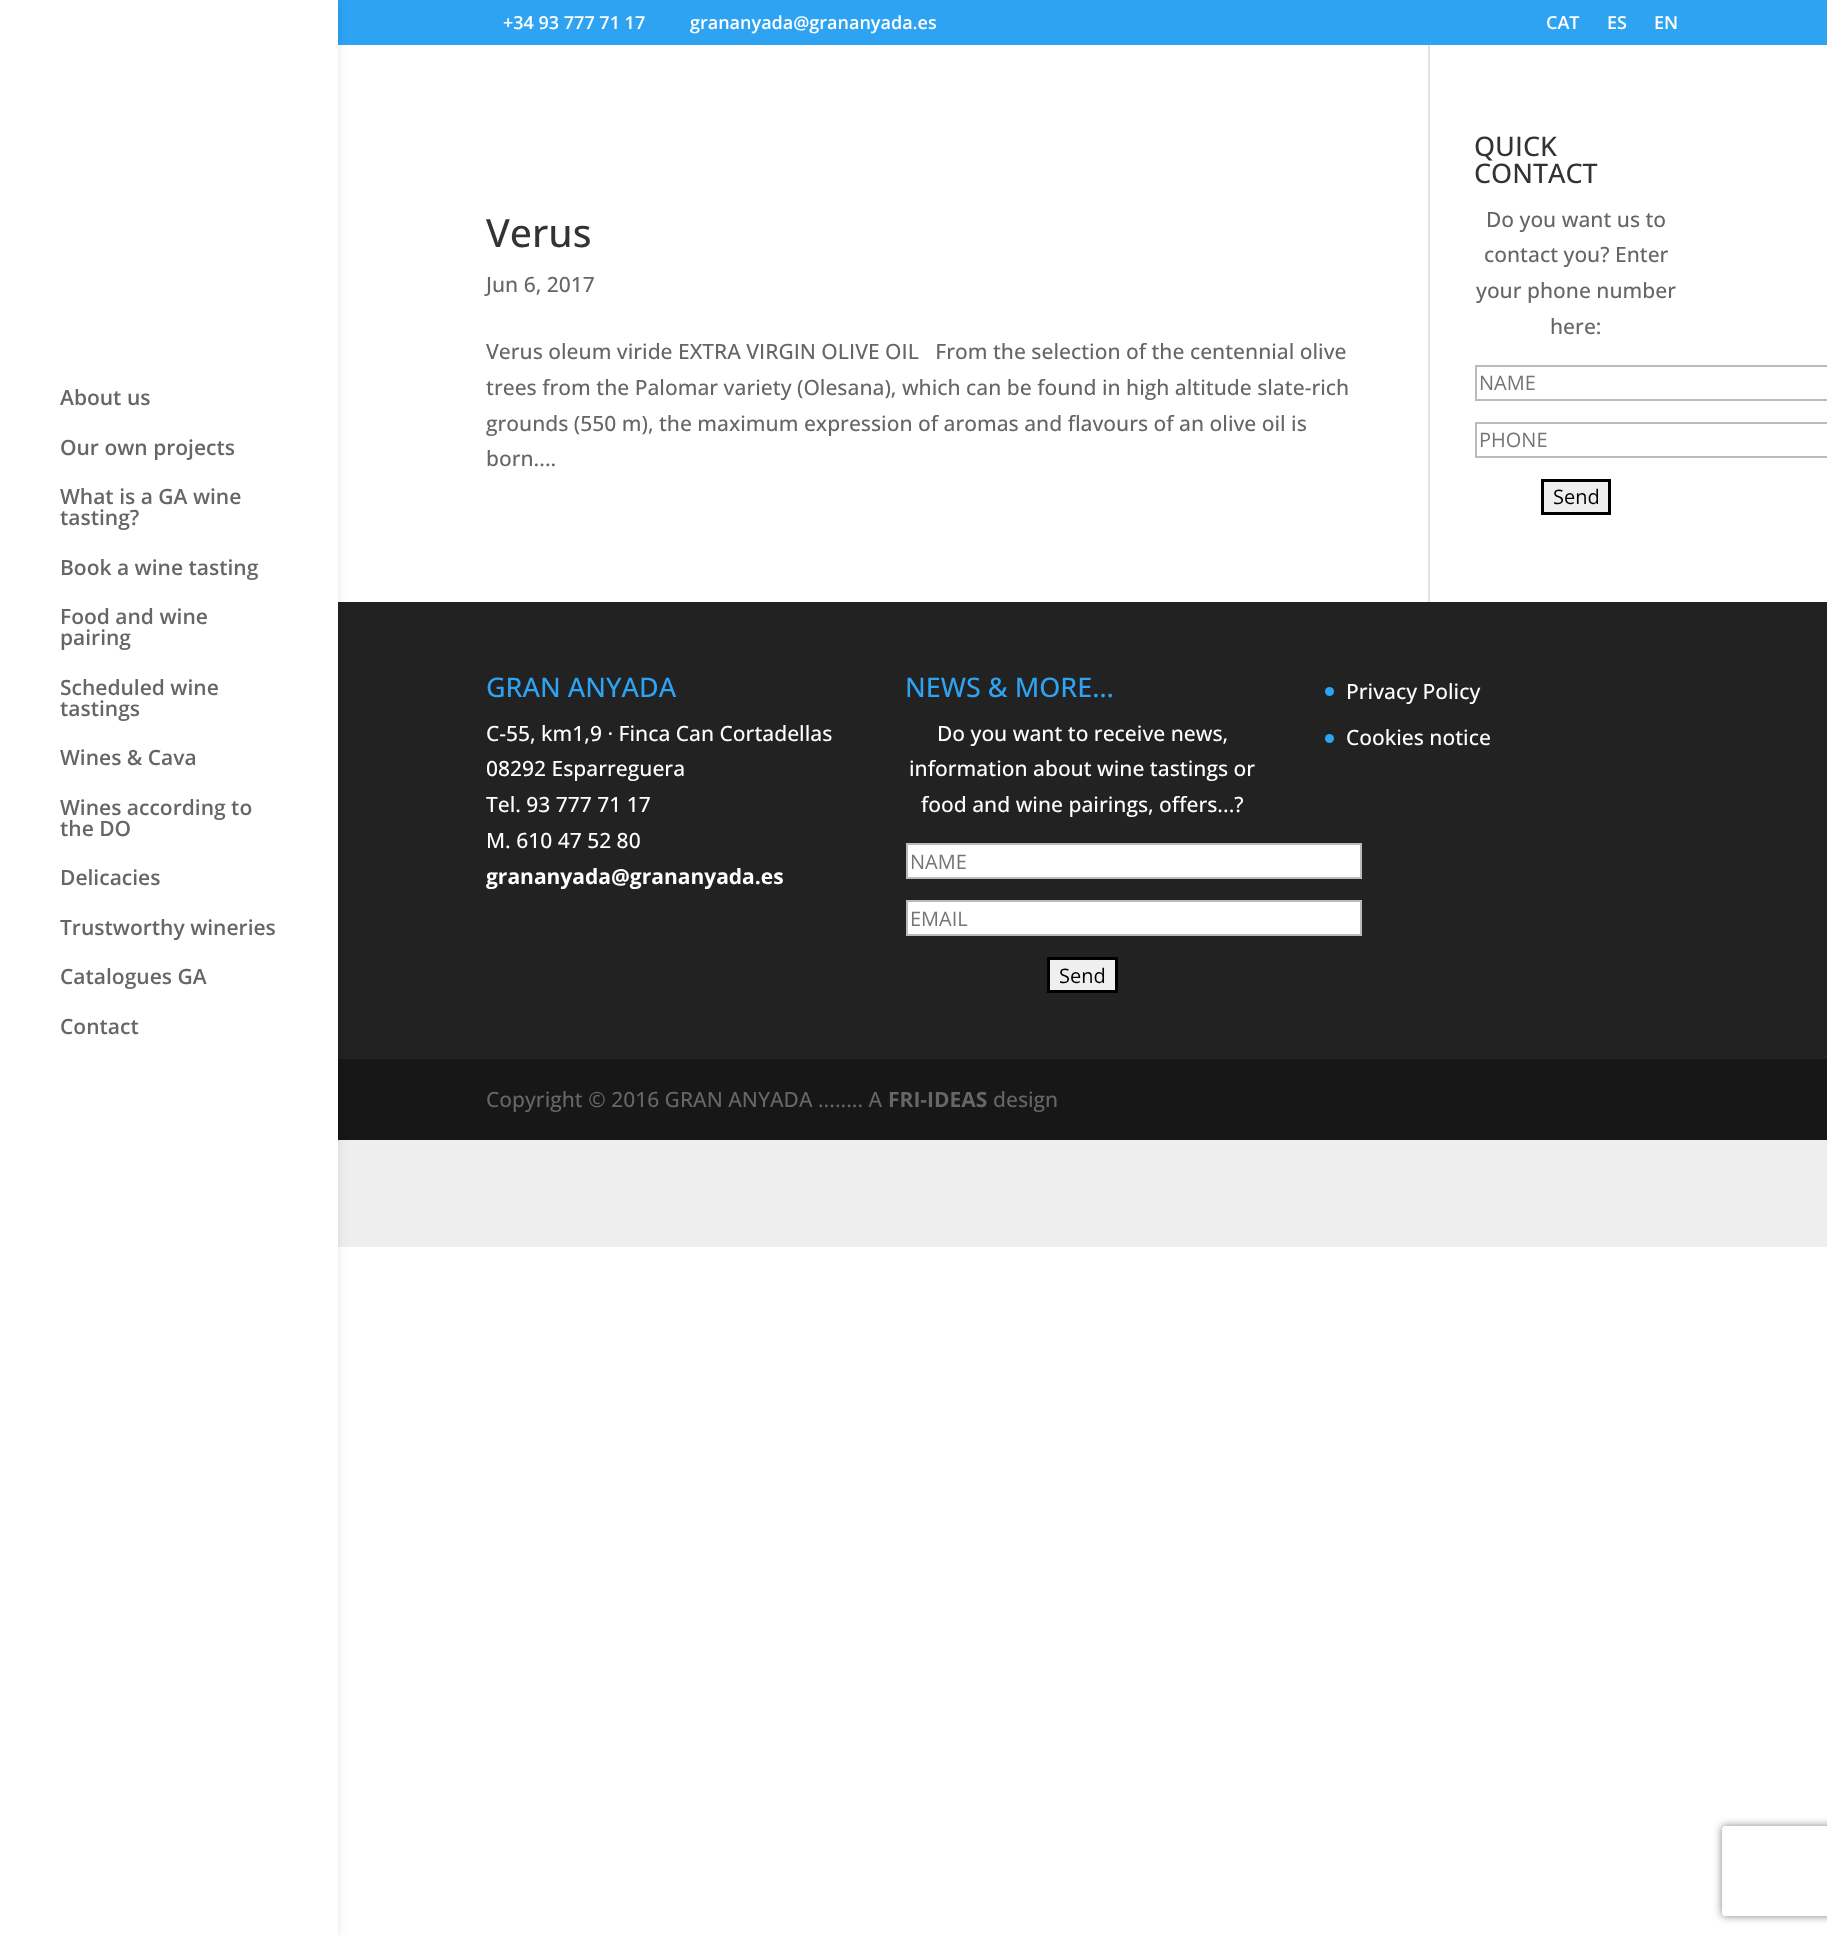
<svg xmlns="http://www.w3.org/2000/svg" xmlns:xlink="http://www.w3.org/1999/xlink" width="1827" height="1936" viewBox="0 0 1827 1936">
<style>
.cls-1{font:600 18px Open Sans;fill:#ffffff}
.cls-2{font:600 21px Open Sans;fill:#666666}
.cls-3{font:500 39px Open Sans;fill:#333333}
.cls-4{font:500 21px Open Sans;fill:#666666}
.cls-5{font:500 27px Open Sans;fill:#333333}
.cls-6{font:20px Open Sans;fill:#757575}
.cls-7{font:20px Open Sans;fill:#000000}
.cls-8{font:500 27px Open Sans;fill:#2ea3f2}
.cls-9{font:500 21px Open Sans;fill:#ffffff}
.cls-10{font:bold 21px Open Sans;fill:#ffffff}
.cls-11{font:bold 21px Open Sans;fill:#666666}
</style>
<defs>
<clipPath id="clip1"><path d="M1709 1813H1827V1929H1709ZM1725 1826H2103C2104.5 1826 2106 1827.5 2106 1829V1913C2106 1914.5 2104.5 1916 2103 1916H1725C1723.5 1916 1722 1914.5 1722 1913V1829C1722 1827.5 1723.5 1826 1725 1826Z" clip-rule="evenodd"/></clipPath>
</defs>
<rect width="100%" height="100%" fill="#ffffff"/>
<rect fill="#2ea3f2" x="338" y="0" width="1489" height="45"/>
<rect fill="#222222" x="338" y="602" width="1489" height="457"/>
<rect fill="#171717" x="338" y="1059" width="1489" height="81"/>
<rect fill="#eeeeee" x="338" y="1140" width="1489" height="107"/>
<rect fill="#000000" fill-opacity="0.1" filter="blur(5px)" x="0" y="0" width="338" height="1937"/>
<rect fill="#ffffff" x="0" y="0" width="338" height="1936"/>
<rect fill="#e2e2e2" x="1428" y="45" width="2" height="557"/>
<rect fill="none" stroke="#bbbbbb" stroke-width="2" x="1476" y="366" width="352" height="34"/>
<rect fill="none" stroke="#bbbbbb" stroke-width="2" x="1476" y="423" width="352" height="34"/>
<rect fill="#efefef" stroke="#000000" stroke-width="3" x="1542.5" y="480.5" width="67" height="33"/>
<rect fill="#ffffff" stroke="#bbbbbb" stroke-width="2" x="907" y="844" width="454" height="34"/>
<rect fill="#ffffff" stroke="#bbbbbb" stroke-width="2" x="907" y="901" width="454" height="34"/>
<rect fill="#efefef" stroke="#000000" stroke-width="3" x="1048.5" y="958.5" width="68" height="33"/>
<circle fill="#2ea3f2" cx="1329.5" cy="691.5" r="4.5"/>
<circle fill="#2ea3f2" cx="1329.5" cy="738.5" r="4.5"/>
<g clip-path="url(#clip1)">
<rect fill="#808080" filter="blur(4px)" x="1722" y="1826" width="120" height="90" rx="3"/>
</g>
<text class="cls-1" x="503" y="29">+34 93 777 71 17</text>
<text class="cls-1" x="690" y="29">grananyada@grananyada.es</text>
<text class="cls-1" x="1546" y="29">CAT</text>
<text class="cls-1" x="1607" y="29">ES</text>
<text class="cls-1" x="1654" y="29">EN</text>
<text class="cls-2" x="60" y="405">About us</text>
<text class="cls-2" x="60" y="455">Our own projects</text>
<text class="cls-2"><tspan x="60" y="504">What is a GA wine</tspan><tspan x="60" y="525">tasting?</tspan></text>
<text class="cls-2" x="60" y="575">Book a wine tasting</text>
<text class="cls-2"><tspan x="60" y="624">Food and wine</tspan><tspan x="60" y="645">pairing</tspan></text>
<text class="cls-2"><tspan x="60" y="695">Scheduled wine</tspan><tspan x="60" y="716">tastings</tspan></text>
<text class="cls-2" x="60" y="765">Wines &amp; Cava</text>
<text class="cls-2"><tspan x="60" y="815">Wines according to</tspan><tspan x="60" y="836">the DO</tspan></text>
<text class="cls-2" x="60" y="885">Delicacies</text>
<text class="cls-2" x="60" y="935">Trustworthy wineries</text>
<text class="cls-2" x="60" y="984">Catalogues GA</text>
<text class="cls-2" x="60" y="1034">Contact</text>
<text class="cls-3" x="486" y="247">Verus</text>
<text class="cls-4" x="486" y="292">Jun 6, 2017</text>
<text class="cls-4" xml:space="preserve"><tspan x="486" y="359">Verus oleum viride EXTRA VIRGIN OLIVE OIL   From the selection of the centennial olive</tspan><tspan x="486" y="395">trees from the Palomar variety (Olesana), which can be found in high altitude slate-rich</tspan><tspan x="486" y="431">grounds (550 m), the maximum expression of aromas and flavours of an olive oil is</tspan><tspan x="486" y="466">born....</tspan></text>
<text class="cls-5"><tspan x="1474" y="156">QUICK</tspan><tspan x="1474" y="183">CONTACT</tspan></text>
<text class="cls-4" x="1486" y="227">Do you want us to</text>
<text class="cls-4" x="1484" y="262">contact you? Enter</text>
<text class="cls-4" x="1476" y="298">your phone number</text>
<text class="cls-4" x="1550" y="334">here:</text>
<text class="cls-6" x="1479" y="390">NAME</text>
<text class="cls-6" x="1479" y="447">PHONE</text>
<text class="cls-7" x="1553" y="504">Send</text>
<text class="cls-8" x="486" y="697">GRAN ANYADA</text>
<text class="cls-9"><tspan x="486" y="741">C-55, km1,9 · Finca Can Cortadellas</tspan><tspan x="486" y="776">08292 Esparreguera</tspan><tspan x="486" y="812">Tel. 93 777 71 17</tspan><tspan x="486" y="848">M. 610 47 52 80</tspan></text>
<text class="cls-10" x="486" y="884">grananyada@grananyada.es</text>
<text class="cls-8" x="905" y="697">NEWS &amp; MORE…</text>
<text class="cls-9" x="937" y="741">Do you want to receive news,</text>
<text class="cls-9" x="909" y="776">information about wine tastings or</text>
<text class="cls-9" x="921" y="812">food and wine pairings, offers...?</text>
<text class="cls-6" x="910" y="869">NAME</text>
<text class="cls-6" x="910" y="926">EMAIL</text>
<text class="cls-7" x="1059" y="983">Send</text>
<text class="cls-9" x="1346" y="699">Privacy Policy</text>
<text class="cls-9" x="1346" y="745">Cookies notice</text>
<text class="cls-4" x="486" y="1107">Copyright © 2016 GRAN ANYADA ........ A</text>
<text class="cls-11" x="888" y="1107">FRI-IDEAS</text>
<text class="cls-4" x="993" y="1107">design</text>
</svg>
